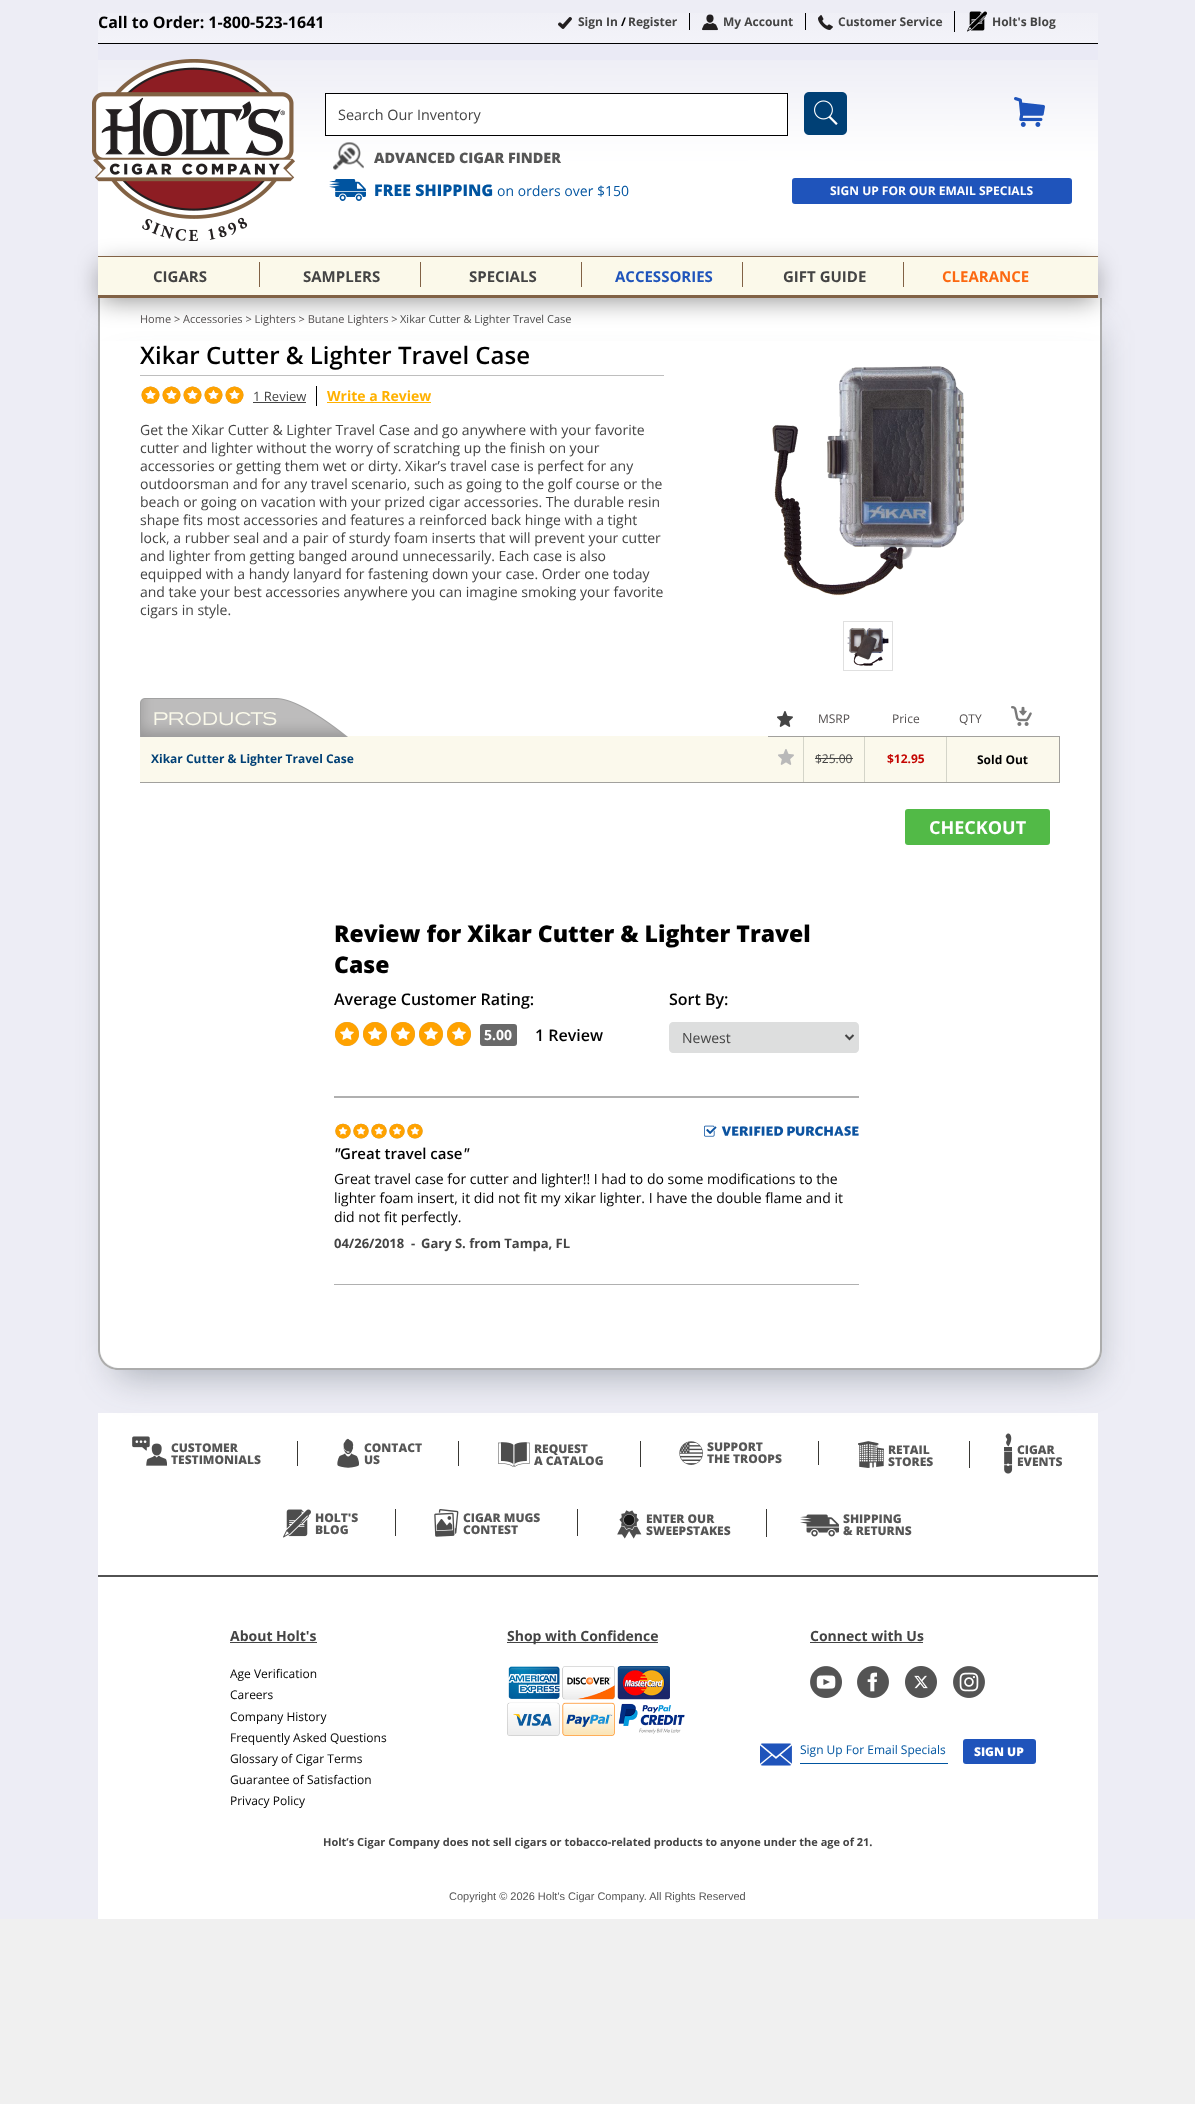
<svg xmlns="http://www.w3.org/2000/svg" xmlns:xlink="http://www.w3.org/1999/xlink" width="1195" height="2104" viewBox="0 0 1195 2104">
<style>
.cls-1{font:bold 16px Open Sans;fill:#000000}
.cls-2{font:bold 12px Open Sans;fill:#444444}
.cls-3{font:bold 12px Open Sans;fill:#000000}
.cls-4{font:14.4px Open Sans;fill:#444444}
.cls-5{font:800 14.4px Open Sans;fill:#565656}
.cls-6{font:bold 12px Open Sans;fill:#ffffff}
.cls-7{font:bold 15px Open Sans;fill:#444444}
.cls-8{font:bold 15px Open Sans;fill:#1f54bb}
.cls-9{font:bold 15px Open Sans;fill:#fc6911}
.cls-10{font:11px Open Sans;fill:#534f4f}
.cls-11{font:11px Open Sans;fill:#4c4c4c}
.cls-12{font:600 24px Open Sans;fill:#000000}
.cls-13{font:13px Open Sans;fill:#444444}
.cls-14{font:bold 14px Open Sans;fill:#ffb100}
.cls-15{font:14px Open Sans;fill:#444444}
.cls-16{font:12px Open Sans;fill:#534f4f}
.cls-17{font:bold 12px Open Sans;fill:#004075}
.cls-18{font:12px Open Sans;fill:#444444}
.cls-19{font:bold 12px Open Sans;fill:#c40501}
.cls-20{font:bold 18px Open Sans;fill:#ffffff}
.cls-21{font:800 23px Open Sans;fill:#000000}
.cls-22{font:600 16px Open Sans;fill:#000000}
.cls-23{font:bold 14px Open Sans;fill:#ffffff}
.cls-24{font:italic 600 15px Open Sans;fill:#000000}
.cls-25{font:600 15px Open Sans;fill:#000000}
.cls-26{font:14px Open Sans;fill:#000000}
.cls-27{font:bold 13px Open Sans;fill:#444444}
.cls-28{font:800 12px Open Sans;fill:#565656}
.cls-29{font:bold 14px Open Sans;fill:#444444}
.cls-30{font:12px Open Sans;fill:#000000}
.cls-31{font:12px Open Sans;fill:#0055a0}
.cls-32{font:800 12px Open Sans;fill:#ffffff}
.cls-33{font:bold 11px Open Sans;fill:#444444}
.cls-34{font:11px Liberation Sans;fill:#565656}
</style>
<defs>
<linearGradient id="g1" gradientUnits="userSpaceOnUse" x1="598" y1="0" x2="598" y2="43"><stop offset="0" stop-color="#eeeef5"/><stop offset="1" stop-color="#f3f3f9"/></linearGradient>
<clipPath id="clip1"><path d="M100 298H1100V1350C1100 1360 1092 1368 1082 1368H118C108 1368 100 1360 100 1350Z"/></clipPath>
<clipPath id="clip2"><path d="M100 298H1100V1350C1100 1360 1092 1368 1082 1368H118C108 1368 100 1360 100 1350Z"/></clipPath>
</defs>
<rect width="100%" height="100%" fill="#f0f0f0"/>
<rect fill="#ededf5" x="0" y="0" width="1195" height="1919"/>
<rect fill="url(#g1)" x="98" y="13" width="1000" height="30"/>
<rect fill="#000000" x="98" y="43" width="1000" height="1"/>
<image xlink:href="image0.png" x="558" y="17" width="14" height="12"/>
<rect fill="#000000" x="689" y="13" width="1" height="17"/>
<rect fill="#000000" x="805" y="13" width="1" height="17"/>
<image xlink:href="image1.png" x="702" y="14" width="16" height="17"/>
<image xlink:href="image2.png" x="818" y="15" width="15" height="15"/>
<image xlink:href="image3.png" x="967" y="11" width="20" height="21"/>
<rect fill="#000000" x="954" y="11" width="1" height="21"/>
<rect fill="#eaeaf5" x="98" y="44" width="1000" height="16"/>
<image xlink:href="image4.png" x="98" y="60" width="1000" height="196"/>
<rect fill="#ffffff" x="98" y="1413" width="1000" height="162"/>
<rect fill="#35434c" fill-opacity="0.38" filter="blur(18.5px)" x="116" y="329" width="978" height="1046" rx="7"/>
<path fill="#ffffff" d="M98 298H1102V1350C1102 1361 1093 1370 1082 1370H118C107 1370 98 1361 98 1350Z"/>
<path fill="#acacac" fill-rule="evenodd" d="M98 298H1102V1350C1102 1361 1093 1370 1082 1370H118C107 1370 98 1361 98 1350ZM100 298H1100V1350C1100 1360 1092 1368 1082 1368H118C108 1368 100 1360 100 1350Z"/>
<rect fill="#040505" fill-opacity="0.42" filter="blur(12.5px)" x="101" y="265" width="994" height="36"/>
<image xlink:href="image5.png" x="92" y="59" width="203" height="182"/>
<image xlink:href="image6.png" x="1014" y="97" width="31" height="30"/>
<rect fill="#ffffff" stroke="#000000" x="325.5" y="93.5" width="462" height="42"/>
<image xlink:href="image7.png" x="804" y="92" width="43" height="43"/>
<image xlink:href="image8.png" x="333" y="142" width="31" height="28"/>
<image xlink:href="image9.png" x="329" y="179" width="300" height="22"/>
<rect fill="#1f54bb" x="792" y="178" width="280" height="26" rx="3"/>
<rect fill="#fbf9ea" x="98" y="257" width="1000" height="38"/>
<rect fill="#816245" x="98" y="256" width="1000" height="1"/>
<rect fill="#816245" x="98" y="295" width="1000" height="3"/>
<rect fill="#816245" x="259" y="262" width="1" height="25"/>
<rect fill="#816245" x="420" y="262" width="1" height="25"/>
<rect fill="#816245" x="581" y="262" width="1" height="25"/>
<rect fill="#816245" x="742" y="262" width="1" height="25"/>
<rect fill="#816245" x="903" y="262" width="1" height="25"/>
<g clip-path="url(#clip1)">
<rect fill="#35434c" fill-opacity="0.38" filter="blur(18.5px)" x="118" y="372" width="974" height="1001" rx="7"/>
</g>
<g clip-path="url(#clip2)">
<path fill="#ffffff" d="M100 341H1100V1348C1100 1359 1091 1368 1080 1368H120C109 1368 100 1359 100 1348Z"/>
</g>
<rect fill="#bebebe" x="140" y="375" width="524" height="1"/>
<image xlink:href="image10.png" x="141" y="386" width="103" height="18"/>
<image xlink:href="image11.png" x="141" y="386" width="103" height="18"/>
<rect fill="#444444" x="253" y="402" width="53" height="1"/>
<rect fill="#000000" x="316" y="386" width="1" height="20"/>
<rect fill="#ffb100" x="327" y="402" width="104" height="1"/>
<image xlink:href="image12.png" x="772" y="366" width="192" height="230"/>
<rect fill="none" stroke="#e0e0e0" x="843.5" y="621.5" width="49" height="49"/>
<image xlink:href="image13.png" x="847" y="628" width="42" height="38"/>
<rect fill="#a2a19d" x="1059" y="736" width="1" height="47"/>
<rect fill="#d4d5c9" x="803" y="736" width="1" height="47"/>
<rect fill="#d4d5c9" x="864" y="736" width="1" height="47"/>
<rect fill="#d4d5c9" x="946" y="736" width="1" height="47"/>
<rect fill="#a2a19d" x="767" y="736" width="293" height="1"/>
<rect fill="#fbf9ec" x="140" y="736" width="628" height="46"/>
<image xlink:href="image14.png" x="140" y="698" width="208" height="39"/>
<image xlink:href="image15.png" x="777" y="711" width="16" height="16"/>
<image xlink:href="image16.png" x="1011" y="706" width="21" height="20"/>
<rect fill="#fbf9ec" x="768" y="737" width="35" height="45"/>
<image xlink:href="image17.png" x="778" y="749" width="16" height="16"/>
<rect fill="#fbf9ec" x="804" y="737" width="60" height="45"/>
<rect fill="#444444" x="815" y="758" width="38" height="1"/>
<rect fill="#fbf9ec" x="865" y="737" width="81" height="45"/>
<rect fill="#fbf9ec" x="947" y="737" width="112" height="45"/>
<rect fill="#a2a19d" x="140" y="782" width="920" height="1"/>
<rect fill="#52ba47" x="905" y="809" width="145" height="36" rx="3"/>
<rect fill="#b0b0b0" x="334" y="1096" width="525" height="2"/>
<image xlink:href="image18.png" x="335" y="1022" width="24" height="24"/>
<image xlink:href="image18.png" x="363" y="1022" width="24" height="24"/>
<image xlink:href="image18.png" x="391" y="1022" width="24" height="24"/>
<image xlink:href="image18.png" x="419" y="1022" width="24" height="24"/>
<image xlink:href="image18.png" x="447" y="1022" width="24" height="24"/>
<image xlink:href="image19.png" x="335" y="1022" width="24" height="24"/>
<image xlink:href="image19.png" x="363" y="1022" width="24" height="24"/>
<image xlink:href="image19.png" x="391" y="1022" width="24" height="24"/>
<image xlink:href="image19.png" x="419" y="1022" width="24" height="24"/>
<image xlink:href="image19.png" x="447" y="1022" width="24" height="24"/>
<rect fill="#696969" x="480" y="1024" width="37" height="22" rx="3"/>
<path fill="#dddede" d="M673 1022H855C857 1022 859 1024 859 1026V1049C859 1051 857 1053 855 1053H673C671 1053 669 1051 669 1049V1026C669 1024 671 1022 673 1022Z"/>
<path fill="none" stroke="#444444" stroke-width="2" d="M845.5 1035L849.5 1039L853.5 1035"/>
<rect fill="#b0b0b0" x="334" y="1284" width="525" height="1"/>
<image xlink:href="image20.png" x="335" y="1123" width="88" height="16"/>
<image xlink:href="image21.png" x="335" y="1123" width="88" height="16"/>
<image xlink:href="image22.png" x="704" y="1125" width="155" height="12"/>
<rect fill="#525252" x="98" y="1575" width="1000" height="2"/>
<rect fill="#393834" x="297" y="1441" width="1" height="25"/>
<image xlink:href="image23.png" x="132" y="1436" width="35" height="30"/>
<rect fill="#393834" x="458" y="1441" width="1" height="25"/>
<image xlink:href="image24.png" x="337" y="1438" width="22" height="30"/>
<rect fill="#393834" x="640" y="1441" width="1" height="26"/>
<image xlink:href="image25.png" x="498" y="1442" width="32" height="25"/>
<rect fill="#393834" x="818" y="1441" width="1" height="24"/>
<image xlink:href="image26.png" x="679" y="1441" width="24" height="24"/>
<rect fill="#393834" x="969" y="1441" width="1" height="27"/>
<image xlink:href="image27.png" x="858" y="1441" width="26" height="27"/>
<image xlink:href="image28.png" x="1004" y="1433" width="9" height="41"/>
<rect fill="#393834" x="395" y="1509" width="1" height="27"/>
<image xlink:href="image29.png" x="283" y="1509" width="28" height="29"/>
<rect fill="#393834" x="577" y="1509" width="1" height="27"/>
<image xlink:href="image30.png" x="434" y="1509" width="25" height="28"/>
<rect fill="#393834" x="766" y="1509" width="1" height="28"/>
<image xlink:href="image31.png" x="617" y="1510" width="25" height="29"/>
<image xlink:href="image32.png" x="800" y="1514" width="39" height="23"/>
<rect fill="#ffffff" x="98" y="1577" width="1000" height="342"/>
<rect fill="#444444" x="230" y="1642" width="87" height="1"/>
<rect fill="#444444" x="507" y="1642" width="151" height="1"/>
<image xlink:href="image33.png" x="507" y="1666" width="178" height="70"/>
<rect fill="#444444" x="810" y="1642" width="113" height="1"/>
<image xlink:href="image34.png" x="810" y="1666" width="32" height="32"/>
<image xlink:href="image35.png" x="857" y="1666" width="32" height="32"/>
<image xlink:href="image36.png" x="905" y="1666" width="32" height="32"/>
<image xlink:href="image37.png" x="953" y="1666" width="32" height="32"/>
<image xlink:href="image38.png" x="760" y="1743" width="32" height="23"/>
<rect fill="#1f54bb" x="963" y="1739" width="73" height="25" rx="3"/>
<rect fill="#0055a0" x="800" y="1763" width="148" height="1"/>
<text class="cls-1" x="98" y="28">Call to Order: 1-800-523-1641</text>
<text class="cls-2" x="578" y="26">Sign In</text>
<text class="cls-3" x="621" y="26">/</text>
<text class="cls-2" x="628" y="26">Register</text>
<text class="cls-2" x="723" y="26">My Account</text>
<text class="cls-2" x="838" y="26">Customer Service</text>
<text class="cls-2" x="992" y="26">Holt's Blog</text>
<text class="cls-4" x="338" y="120">Search Our Inventory</text>
<text class="cls-5" x="374" y="163">ADVANCED CIGAR FINDER</text>
<text class="cls-6" x="830" y="195">SIGN UP FOR OUR EMAIL SPECIALS</text>
<text class="cls-7" x="153" y="282">CIGARS</text>
<text class="cls-7" x="303" y="282">SAMPLERS</text>
<text class="cls-7" x="469" y="282">SPECIALS</text>
<text class="cls-8" x="615" y="282">ACCESSORIES</text>
<text class="cls-7" x="783" y="282">GIFT GUIDE</text>
<text class="cls-9" x="942" y="282">CLEARANCE</text>
<text class="cls-10" x="140" y="323">Home &gt; Accessories &gt; Lighters &gt; Butane Lighters &gt;</text>
<text class="cls-11" x="400" y="323">Xikar Cutter &amp; Lighter Travel Case</text>
<text class="cls-12" x="140" y="364">Xikar Cutter &amp; Lighter Travel Case</text>
<text class="cls-13" x="253" y="401">1 Review</text>
<text class="cls-14" x="327" y="401">Write a Review</text>
<text class="cls-15"><tspan x="140" y="435">Get the Xikar Cutter &amp; Lighter Travel Case and go anywhere with your favorite</tspan><tspan x="140" y="453">cutter and lighter without the worry of scratching up the finish on your</tspan><tspan x="140" y="471">accessories or getting them wet or dirty. Xikar’s travel case is perfect for any</tspan><tspan x="140" y="489">outdoorsman and for any travel scenario, such as going to the golf course or the</tspan><tspan x="140" y="507">beach or going on vacation with your prized cigar accessories. The durable resin</tspan><tspan x="140" y="525">shape fits most accessories and features a reinforced back hinge with a tight</tspan><tspan x="140" y="543">lock, a rubber seal and a pair of sturdy foam inserts that will prevent your cutter</tspan><tspan x="140" y="561">and lighter from getting banged around unnecessarily. Each case is also</tspan><tspan x="140" y="579">equipped with a handy lanyard for fastening down your case. Order one today</tspan><tspan x="140" y="597">and take your best accessories anywhere you can imagine smoking your favorite</tspan><tspan x="140" y="615">cigars in style.</tspan></text>
<text class="cls-16" x="818" y="723">MSRP</text>
<text class="cls-16" x="892" y="723">Price</text>
<text class="cls-16" x="959" y="723">QTY</text>
<text class="cls-17" x="151" y="763">Xikar Cutter &amp; Lighter Travel Case</text>
<text class="cls-18" x="815" y="763">$25.00</text>
<text class="cls-19" x="887" y="763">$12.95</text>
<text class="cls-3" x="977" y="764">Sold Out</text>
<text class="cls-20" x="929" y="834">CHECKOUT</text>
<text class="cls-21"><tspan x="334" y="942">Review for Xikar Cutter &amp; Lighter Travel</tspan><tspan x="334" y="973">Case</tspan></text>
<text class="cls-22" x="334" y="1005">Average Customer Rating:</text>
<text class="cls-23" x="484" y="1040">5.00</text>
<text class="cls-22" x="535" y="1041">1 Review</text>
<text class="cls-22" x="669" y="1005">Sort By:</text>
<text class="cls-15" x="682" y="1043">Newest</text>
<text class="cls-24" x="334" y="1159">"</text>
<text class="cls-25" x="340" y="1159">Great travel case</text>
<text class="cls-24" x="463" y="1159">"</text>
<text class="cls-26"><tspan x="334" y="1184">Great travel case for cutter and lighter!! I had to do some modifications to the</tspan><tspan x="334" y="1203">lighter foam insert, it did not fit my xikar lighter. I have the double flame and it</tspan><tspan x="334" y="1222">did not fit perfectly.</tspan></text>
<text class="cls-27" xml:space="preserve" x="334" y="1248">04/26/2018  -</text>
<text class="cls-27" x="421" y="1248">Gary S. from Tampa, FL</text>
<text class="cls-28"><tspan x="171" y="1452">CUSTOMER</tspan><tspan x="171" y="1464">TESTIMONIALS</tspan></text>
<text class="cls-28"><tspan x="364" y="1452">CONTACT</tspan><tspan x="364" y="1464">US</tspan></text>
<text class="cls-28"><tspan x="534" y="1453">REQUEST</tspan><tspan x="534" y="1465">A CATALOG</tspan></text>
<text class="cls-28"><tspan x="707" y="1451">SUPPORT</tspan><tspan x="707" y="1463">THE TROOPS</tspan></text>
<text class="cls-28"><tspan x="888" y="1454">RETAIL</tspan><tspan x="888" y="1466">STORES</tspan></text>
<text class="cls-28"><tspan x="1017" y="1454">CIGAR</tspan><tspan x="1017" y="1466">EVENTS</tspan></text>
<text class="cls-28"><tspan x="315" y="1522">HOLT'S</tspan><tspan x="315" y="1534">BLOG</tspan></text>
<text class="cls-28"><tspan x="463" y="1522">CIGAR MUGS</tspan><tspan x="463" y="1534">CONTEST</tspan></text>
<text class="cls-28"><tspan x="646" y="1523">ENTER OUR</tspan><tspan x="646" y="1535">SWEEPSTAKES</tspan></text>
<text class="cls-28"><tspan x="843" y="1523">SHIPPING</tspan><tspan x="843" y="1535">&amp; RETURNS</tspan></text>
<text class="cls-29" x="230" y="1641">About Holt's</text>
<text class="cls-30"><tspan x="230" y="1678">Age Verification</tspan><tspan x="230" y="1699">Careers</tspan><tspan x="230" y="1721">Company History</tspan><tspan x="230" y="1742">Frequently Asked Questions</tspan><tspan x="230" y="1763">Glossary of Cigar Terms</tspan><tspan x="230" y="1784">Guarantee of Satisfaction</tspan><tspan x="230" y="1805">Privacy Policy</tspan></text>
<text class="cls-29" x="507" y="1641">Shop with Confidence</text>
<text class="cls-29" x="810" y="1641">Connect with Us</text>
<text class="cls-31" x="800" y="1754">Sign Up For Email Specials</text>
<text class="cls-32" x="974" y="1756">SIGN UP</text>
<text class="cls-33" x="323" y="1846">Holt’s Cigar Company does not sell cigars or tobacco-related products to anyone under the age of 21.</text>
<text class="cls-34" x="449" y="1900">Copyright © 2026 Holt's Cigar Company. All Rights Reserved</text>
</svg>
